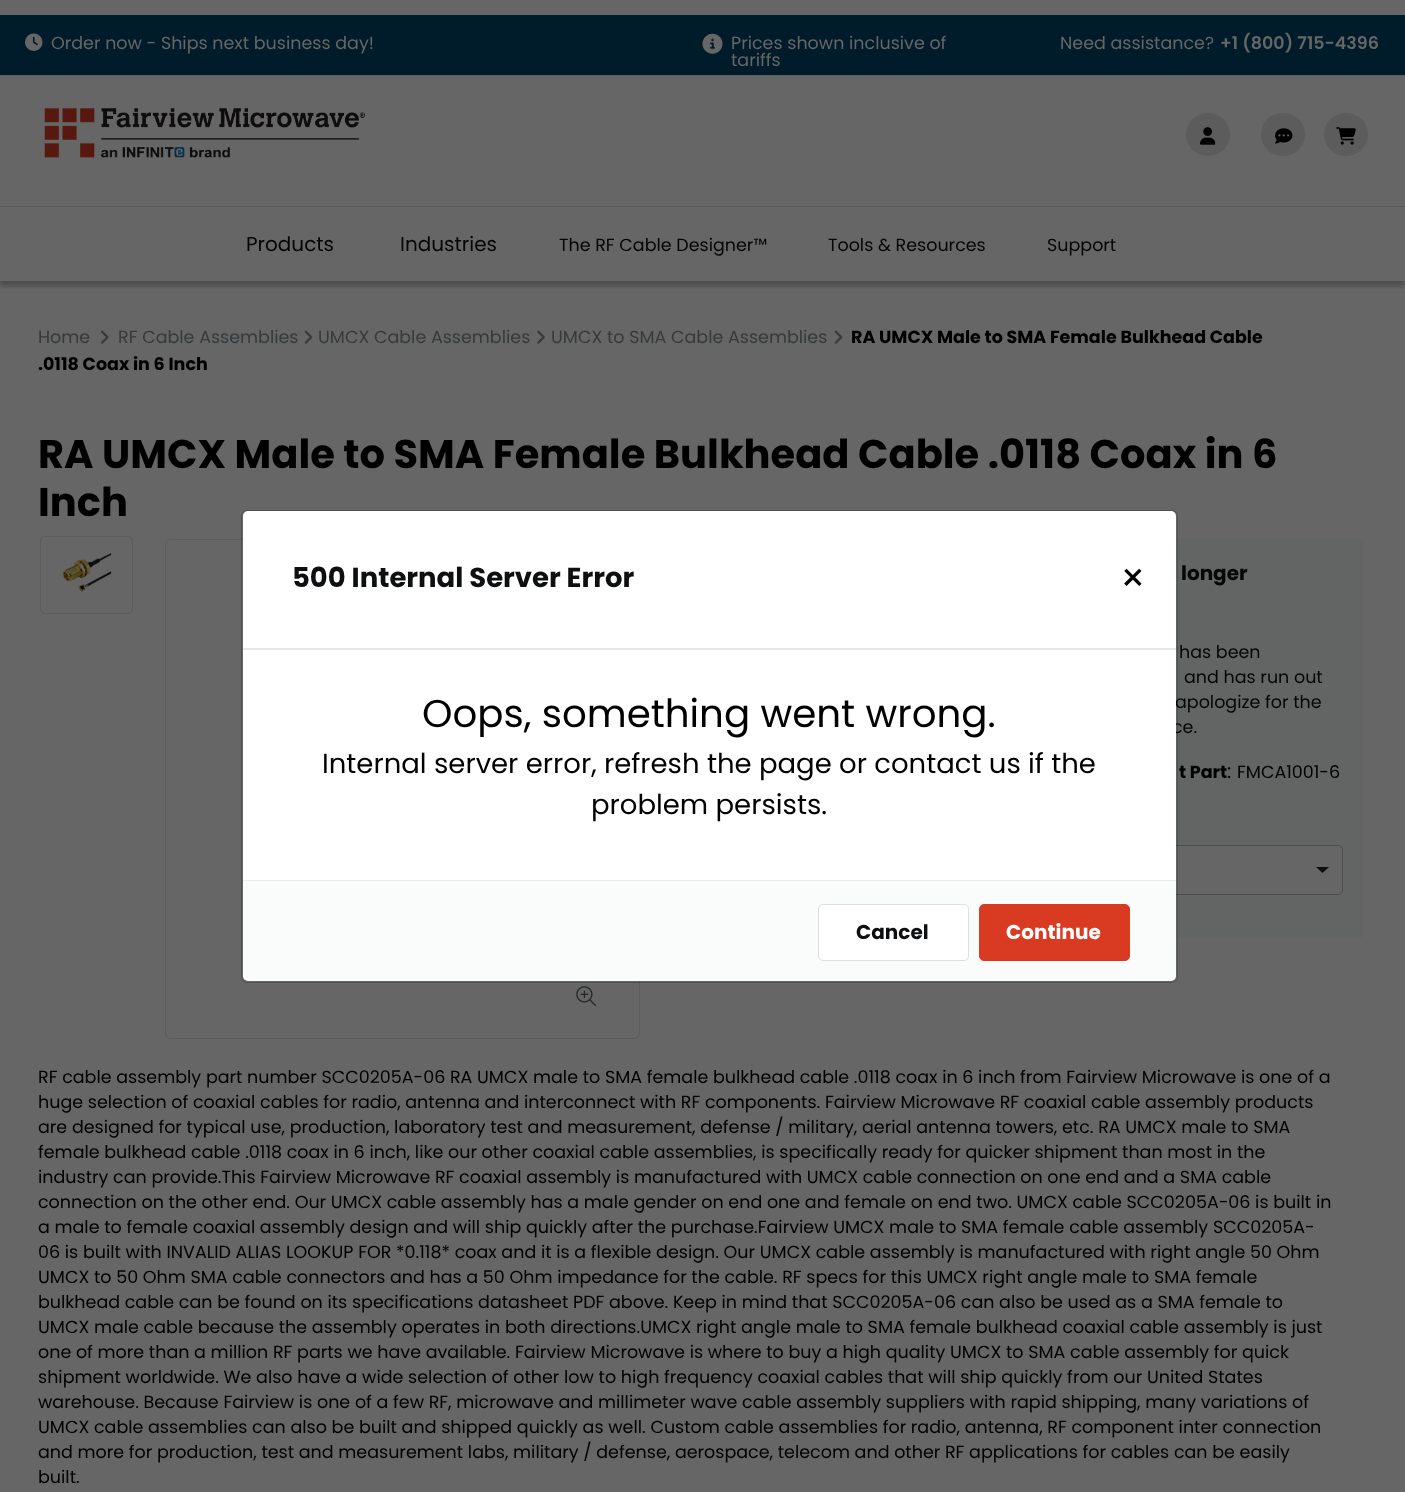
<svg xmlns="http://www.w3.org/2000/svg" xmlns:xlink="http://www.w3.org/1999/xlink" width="1405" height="1492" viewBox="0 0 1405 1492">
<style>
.cls-1{font:17.5px Poppins;fill:#666666}
.cls-2{font:600 17.5px Poppins;fill:#666666}
.cls-3{font:20px Poppins;fill:#060606}
.cls-4{font:17.5px Poppins;fill:#060606}
.cls-5{font:17.5px Poppins;fill:#363a3c}
.cls-6{font:bold 17.5px Poppins;fill:#000000}
.cls-7{font:bold 40px Poppins;fill:#000000}
.cls-8{font:bold 20px Poppins;fill:#060606}
.cls-9{font:27.5px Poppins;fill:#000000}
.cls-10{font:38.75px Poppins;fill:#000000}
.cls-11{font:bold 20px Poppins;fill:#ffffff}
.cls-12{font:bold 20px Poppins;fill:#0e0f10}
.cls-13{font:40px Poppins;fill:#000000}
.cls-14{font:bold 27.5px Poppins;fill:#0e0f10}
.cls-15{font:20px Poppins;fill:#000000}
.cls-16{font:17.5px Poppins;fill:#000000}
</style>
<defs>
<clipPath id="clip1"><rect x="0" y="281" width="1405" height="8"/></clipPath>
</defs>
<rect width="100%" height="100%" fill="#666666"/>
<g clip-path="url(#clip1)">
<rect fill="#000000" fill-opacity="0.25" filter="blur(2.5px)" x="0" y="5" width="1405" height="281"/>
</g>
<rect fill="#001b2a" x="0" y="15" width="1405" height="60"/>
<image xlink:href="image0.png" x="25" y="33" width="18" height="18"/>
<image xlink:href="image1.png" x="702" y="33" width="21" height="21"/>
<rect fill="#5c5c5d" x="0" y="206" width="1405" height="1"/>
<rect fill="#5c5c5d" x="0" y="75" width="1405" height="1"/>
<image xlink:href="image2.png" x="44" y="108" width="321" height="50"/>
<rect fill="#5c5c5d" x="1186" y="113" width="44" height="43" rx="21.5"/>
<image xlink:href="image3.png" x="1200" y="127" width="16" height="18"/>
<rect fill="#5c5c5d" x="1261" y="113" width="44" height="43" rx="21.5"/>
<image xlink:href="image4.png" x="1275" y="128" width="18" height="16"/>
<rect fill="#5c5c5d" x="1324" y="113" width="44" height="43" rx="21.5"/>
<image xlink:href="image5.png" x="1336" y="127" width="20" height="18"/>
<image xlink:href="image6.png" x="101" y="330" width="8" height="14"/>
<image xlink:href="image7.png" x="304" y="330" width="9" height="14"/>
<image xlink:href="image8.png" x="537" y="330" width="8" height="14"/>
<image xlink:href="image7.png" x="834" y="330" width="9" height="14"/>
<rect fill="none" stroke="#5c5c5d" x="40.5" y="536.5" width="92" height="77" rx="4.5"/>
<image xlink:href="image9.png" x="62" y="552" width="50" height="40"/>
<rect fill="none" stroke="#5c5c5d" x="165.5" y="539.5" width="474" height="499" rx="5.5"/>
<image xlink:href="image10.png" x="576" y="986" width="21" height="21"/>
<rect fill="#636464" x="1176" y="539" width="187" height="399"/>
<rect fill="#666666" x="1066" y="845" width="277" height="50" rx="5"/>
<path fill="#0d0f10" d="M1316 867L1322.5 873L1329 867Z"/>
<rect fill="none" stroke="#4b4d4e" x="1066.5" y="845.5" width="276" height="49" rx="4.5"/>
<text class="cls-1" x="51" y="49">Order now - Ships next business day!</text>
<text class="cls-1"><tspan x="731" y="49">Prices shown inclusive of</tspan><tspan x="731" y="66">tariffs</tspan></text>
<text class="cls-1" x="1060" y="49">Need assistance?</text>
<text class="cls-2" x="1220" y="49">+1 (800) 715-4396</text>
<text class="cls-3" x="246" y="251">Products</text>
<text class="cls-3" x="400" y="251">Industries</text>
<text class="cls-4" x="559" y="251">The RF Cable Designer™</text>
<text class="cls-4" x="828" y="251">Tools &amp; Resources</text>
<text class="cls-4" x="1047" y="251">Support</text>
<text class="cls-5" x="38" y="343">Home</text>
<text class="cls-5" x="118" y="343">RF Cable Assemblies</text>
<text class="cls-5" x="318" y="343">UMCX Cable Assemblies</text>
<text class="cls-5" x="551" y="343">UMCX to SMA Cable Assemblies</text>
<text class="cls-6" x="851" y="343">RA UMCX Male to SMA Female Bulkhead Cable</text>
<text class="cls-6" x="38" y="370">.0118 Coax in 6 Inch</text>
<text class="cls-7"><tspan x="38" y="468">RA UMCX Male to SMA Female Bulkhead Cable .0118 Coax in 6</tspan><tspan x="38" y="516">Inch</tspan></text>
<text class="cls-8" x="1181" y="580">longer</text>
<text class="cls-4" x="1179" y="658">has been</text>
<text class="cls-4" x="1184" y="683">and has run out</text>
<text class="cls-4" x="1175" y="708">apologize for the</text>
<text class="cls-4" x="1172" y="733">ce.</text>
<rect fill="#ffffff" x="243" y="511" width="933" height="470" rx="5"/>
<rect fill="none" stroke="#000000" stroke-opacity="0.2" x="241.5" y="510.5" width="936" height="472" rx="5.5"/>
<text class="cls-9" x="591" y="814">problem persists.</text>
<text class="cls-9" x="322" y="773">Internal server error, refresh the page or contact us if the</text>
<text class="cls-10" x="422" y="727">Oops, something went wrong.</text>
<path fill="#fafbfb" d="M243 880H1176V971C1176 976.5 1171.5 981 1166 981H253C247.5 981 243 976.5 243 971Z"/>
<rect fill="#d83a22" stroke="#d83a22" x="979.5" y="904.5" width="150" height="56" rx="4.5"/>
<text class="cls-11" x="1006" y="939">Continue</text>
<rect fill="#ffffff" stroke="#dce0e1" x="818.5" y="904.5" width="150" height="56" rx="4.5"/>
<text class="cls-12" x="856" y="939">Cancel</text>
<rect fill="#e9ecef" x="243" y="880" width="933" height="1"/>
<text class="cls-13" x="1120" y="592">×</text>
<text class="cls-14" x="292" y="587">500 Internal Server Error</text>
<rect fill="#e5e7eb" x="243" y="648" width="933" height="2"/>
<text class="cls-6" x="1179" y="778">t Part</text>
<text class="cls-15" x="1227" y="778">:</text>
<text class="cls-16" x="1237" y="778">FMCA1001-6</text>
<text class="cls-16"><tspan x="38" y="1083">RF cable assembly part number SCC0205A-06 RA UMCX male to SMA female bulkhead cable .0118 coax in 6 inch from Fairview Microwave is one of a</tspan><tspan x="38" y="1108">huge selection of coaxial cables for radio, antenna and interconnect with RF components. Fairview Microwave RF coaxial cable assembly products</tspan><tspan x="38" y="1133">are designed for typical use, production, laboratory test and measurement, defense / military, aerial antenna towers, etc. RA UMCX male to SMA</tspan><tspan x="38" y="1158">female bulkhead cable .0118 coax in 6 inch, like our other coaxial cable assemblies, is specifically ready for quicker shipment than most in the</tspan><tspan x="38" y="1183">industry can provide.This Fairview Microwave RF coaxial assembly is manufactured with UMCX cable connection on one end and a SMA cable</tspan><tspan x="38" y="1208">connection on the other end. Our UMCX cable assembly has a male gender on end one and female on end two. UMCX cable SCC0205A-06 is built in</tspan><tspan x="38" y="1233">a male to female coaxial assembly design and will ship quickly after the purchase.Fairview UMCX male to SMA female cable assembly SCC0205A-</tspan><tspan x="38" y="1258">06 is built with INVALID ALIAS LOOKUP FOR *0.118* coax and it is a flexible design. Our UMCX cable assembly is manufactured with right angle 50 Ohm</tspan><tspan x="38" y="1283">UMCX to 50 Ohm SMA cable connectors and has a 50 Ohm impedance for the cable. RF specs for this UMCX right angle male to SMA female</tspan><tspan x="38" y="1308">bulkhead cable can be found on its specifications datasheet PDF above. Keep in mind that SCC0205A-06 can also be used as a SMA female to</tspan><tspan x="38" y="1333">UMCX male cable because the assembly operates in both directions.UMCX right angle male to SMA female bulkhead coaxial cable assembly is just</tspan><tspan x="38" y="1358">one of more than a million RF parts we have available. Fairview Microwave is where to buy a high quality UMCX to SMA cable assembly for quick</tspan><tspan x="38" y="1383">shipment worldwide. We also have a wide selection of other low to high frequency coaxial cables that will ship quickly from our United States</tspan><tspan x="38" y="1408">warehouse. Because Fairview is one of a few RF, microwave and millimeter wave cable assembly suppliers with rapid shipping, many variations of</tspan><tspan x="38" y="1433">UMCX cable assemblies can also be built and shipped quickly as well. Custom cable assemblies for radio, antenna, RF component inter connection</tspan><tspan x="38" y="1458">and more for production, test and measurement labs, military / defense, aerospace, telecom and other RF applications for cables can be easily</tspan><tspan x="38" y="1483">built.</tspan></text>
</svg>
